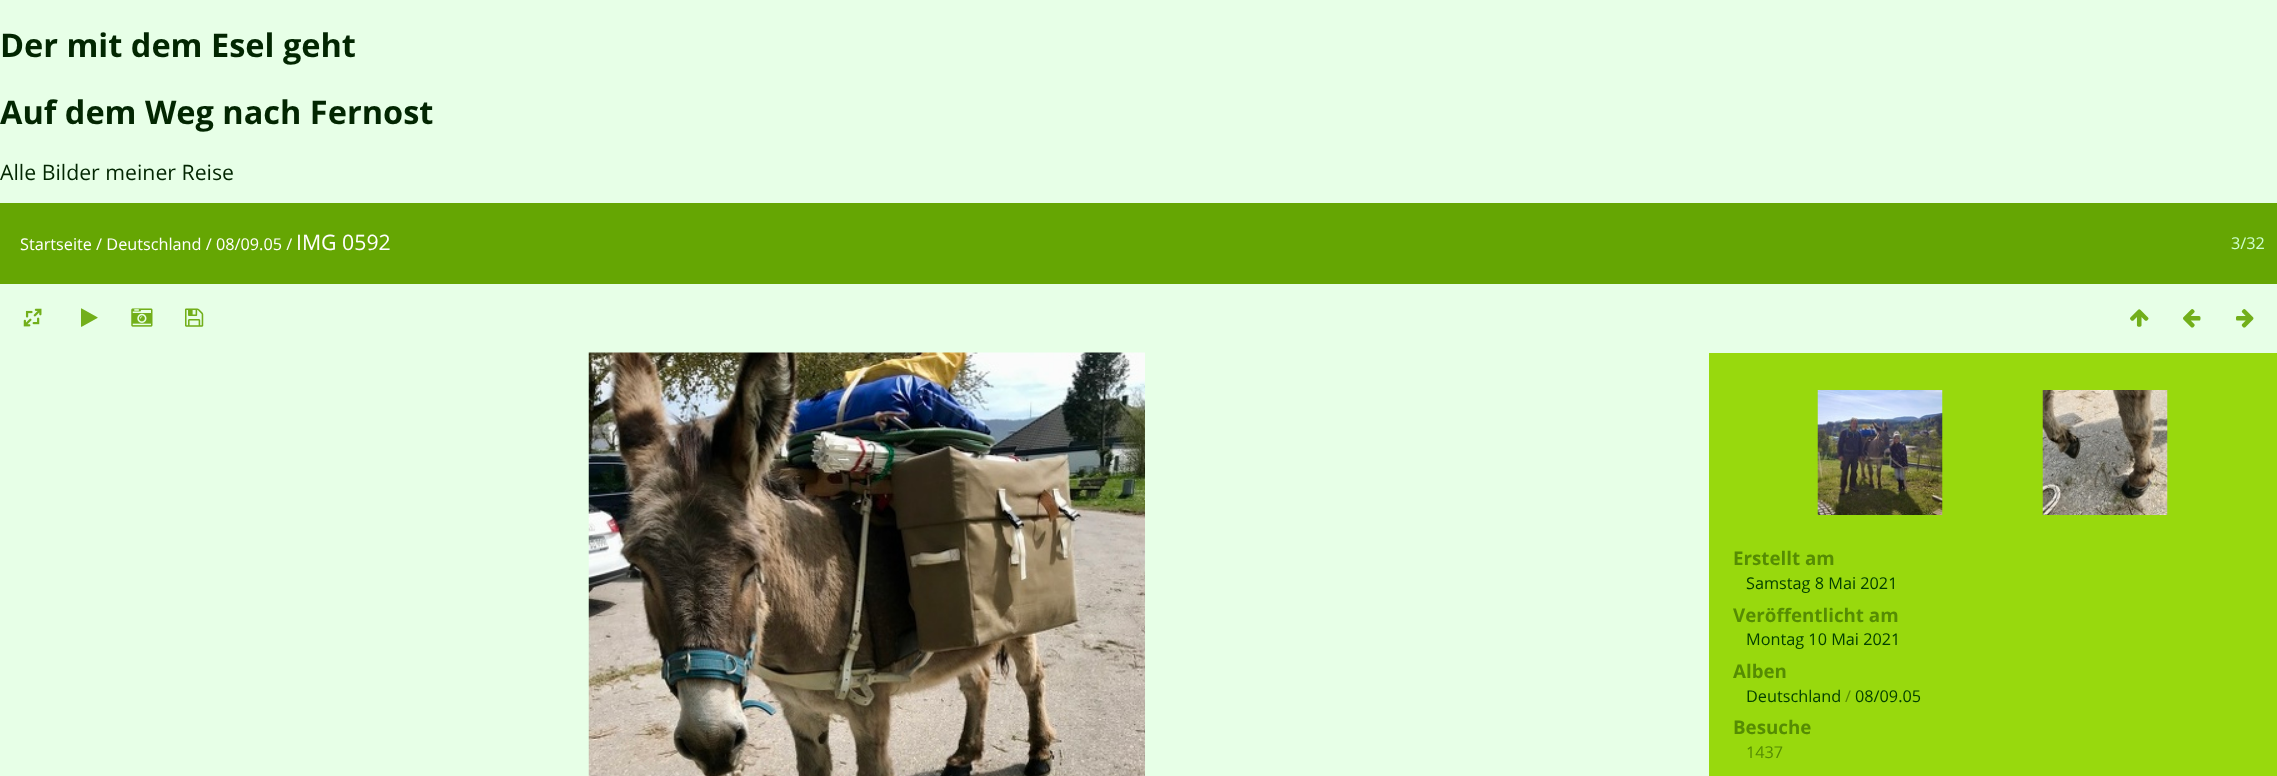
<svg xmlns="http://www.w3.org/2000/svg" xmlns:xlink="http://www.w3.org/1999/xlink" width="2277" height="776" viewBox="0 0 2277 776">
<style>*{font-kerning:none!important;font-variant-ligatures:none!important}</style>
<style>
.cls-1{font:bold 32.5px Open Sans;fill:#022601}
.cls-2{font:21.25px Open Sans;fill:#022601}
.cls-3{font:16.25px Open Sans;fill:#ffffff}
.cls-4{font:21.25px Open Sans;fill:#ffffff}
.cls-5{font:16.25px Open Sans;fill:#ceffce}
.cls-6{font:21.25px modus;fill:#72af1a}
.cls-7{font:bold 18.75px Open Sans;fill:#558c03}
.cls-8{font:16.25px Open Sans;fill:#034001}
.cls-9{font:16.25px Open Sans;fill:#558c03}
</style>
<rect width="100%" height="100%" fill="#e7ffe7"/>
<rect fill="#65a603" x="0" y="203" width="2277" height="81"/>
<image xlink:href="image0.png" x="23" y="308" width="19" height="19"/>
<image xlink:href="image1.png" x="131" y="308" width="22" height="19"/>
<image xlink:href="image2.png" x="588" y="352" width="557" height="424"/>
<rect fill="#98d90d" x="1709" y="353" width="568" height="423"/>
<image xlink:href="image3.png" x="1817" y="390" width="126" height="125"/>
<image xlink:href="image4.png" x="2042" y="390" width="126" height="125"/>
<text class="cls-1" x="0" y="57">Der mit dem Esel geht</text>
<text class="cls-1" x="0" y="124">Auf dem Weg nach Fernost</text>
<text class="cls-2" x="0" y="180">Alle Bilder meiner Reise</text>
<text class="cls-3" x="20" y="250">Startseite / Deutschland / 08/09.05 /</text>
<text class="cls-4" x="296" y="250">IMG 0592</text>
<text class="cls-5" x="2231" y="249">3/32</text>
<text class="cls-6" x="81" y="325">▶</text>
<text class="cls-6" x="185" y="325">💾</text>
<text class="cls-6" x="2130" y="325">↑</text>
<text class="cls-6" x="2183" y="325">←</text>
<text class="cls-6" x="2236" y="325">→</text>
<text class="cls-7" x="1733" y="565">Erstellt am</text>
<text class="cls-8" x="1746" y="589">Samstag 8 Mai 2021</text>
<text class="cls-7" x="1733" y="622">Veröffentlicht am</text>
<text class="cls-8" x="1746" y="645">Montag 10 Mai 2021</text>
<text class="cls-7" x="1733" y="678">Alben</text>
<text class="cls-8" x="1746" y="702">Deutschland</text>
<text class="cls-9" x="1845" y="702">/</text>
<text class="cls-8" x="1855" y="702">08/09.05</text>
<text class="cls-7" x="1733" y="734">Besuche</text>
<text class="cls-9" x="1746" y="758">1437</text>
</svg>
